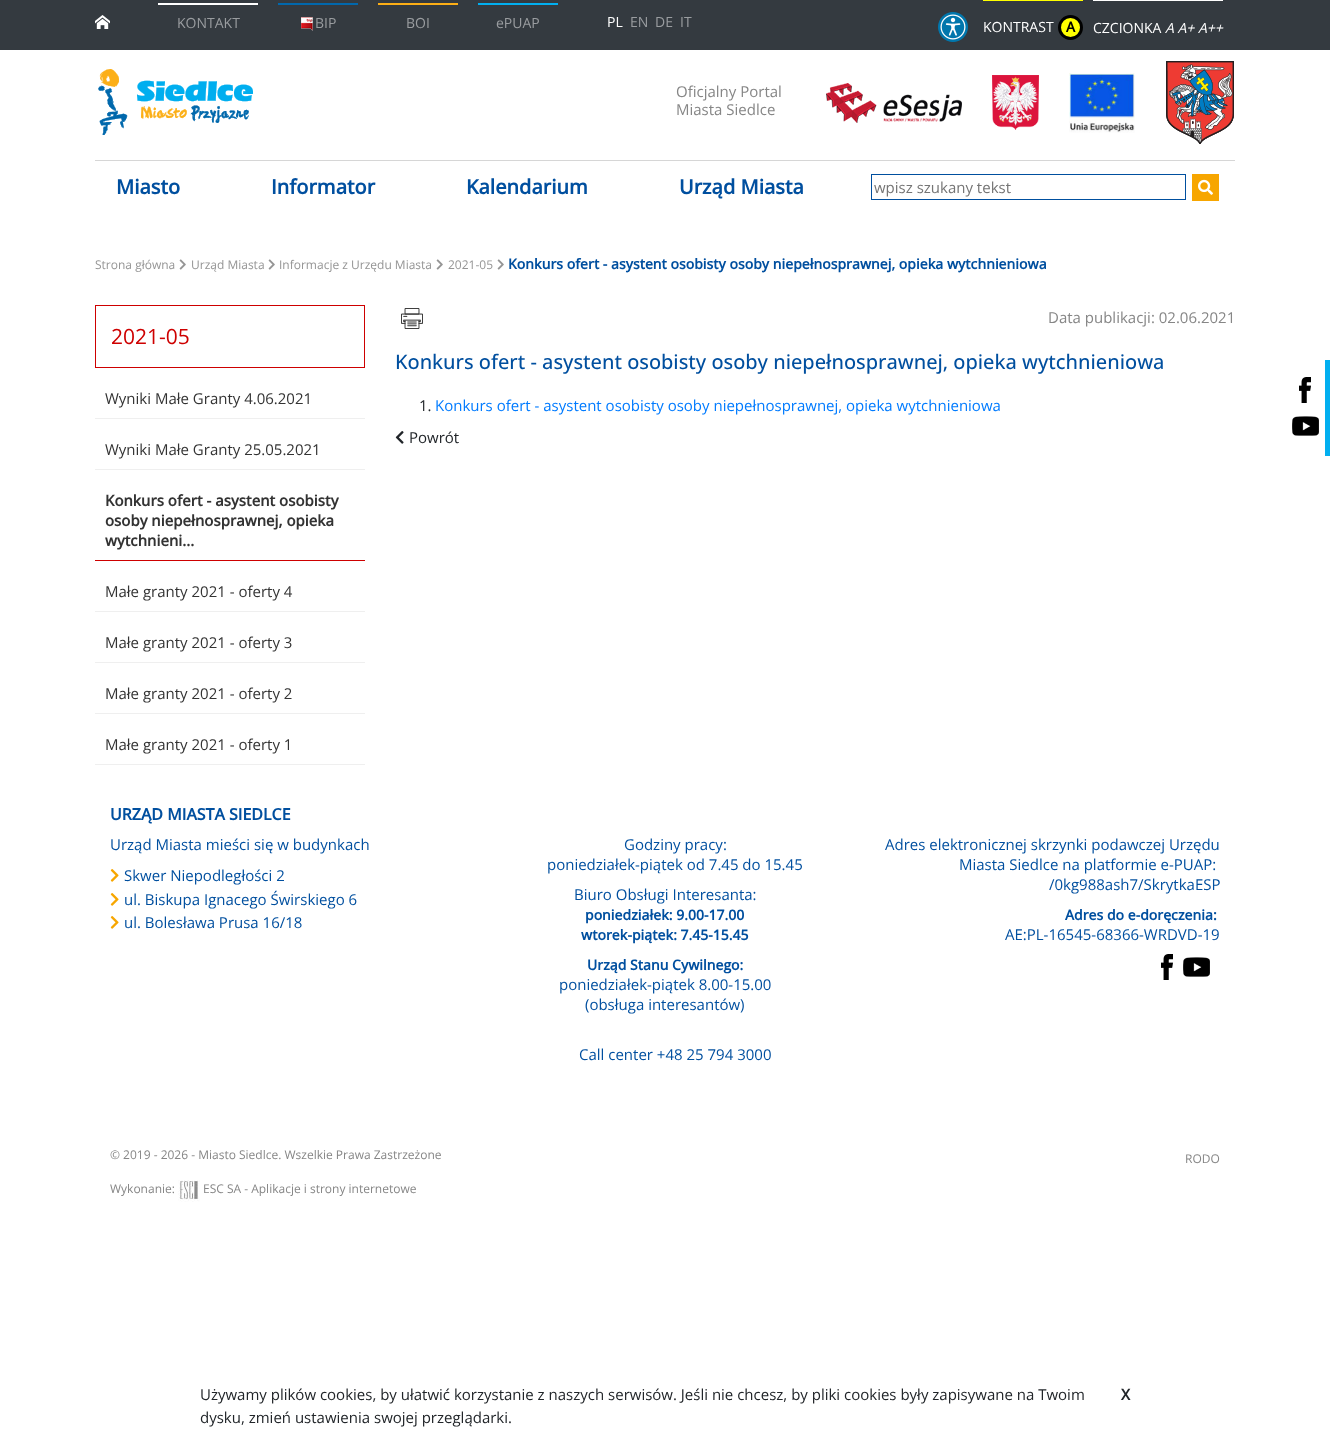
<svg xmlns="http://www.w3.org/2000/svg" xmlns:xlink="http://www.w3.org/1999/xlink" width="1330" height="1438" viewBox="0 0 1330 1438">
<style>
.cls-1{font:14px Open Sans;fill:#9a9da0}
.cls-2{font:14px Open Sans;fill:#ffffff}
.cls-3{font:bold 14px Open Sans;fill:#000000}
.cls-4{font:italic 14px Open Sans;fill:#ffffff}
.cls-5{font:15px Open Sans;fill:#868686}
.cls-6{font:bold 20px Open Sans;fill:#004f9f}
.cls-7{font:15px Open Sans;fill:#757575}
.cls-8{font:12px Open Sans;fill:#959595}
.cls-9{font:bold 14px Open Sans;fill:#004f9f}
.cls-10{font:21px Open Sans;fill:#ce0000}
.cls-11{font:15px Open Sans;fill:#333333}
.cls-12{font:bold 15px Open Sans;fill:#333333}
.cls-13{font:500 20px Open Sans;fill:#004f9f}
.cls-14{font:15px Open Sans;fill:#212529}
.cls-15{font:15px Open Sans;fill:#007bff}
.cls-16{font:bold 16px Open Sans;fill:#004f9f}
.cls-17{font:15px Open Sans;fill:#004f9f}
.cls-18{font:12px Open Sans;fill:#868686}
.cls-19{font:bold 15px Open Sans;fill:#212529}
</style>
<rect width="100%" height="100%" fill="#ffffff"/>
<rect fill="#343a40" x="0" y="0" width="1330" height="50"/>
<image xlink:href="image0.png" x="95" y="15" width="15" height="14"/>
<rect fill="#ffffff" x="158" y="3" width="100" height="2"/>
<rect fill="#0168ad" x="278" y="3" width="80" height="2"/>
<image xlink:href="image1.png" x="301" y="17" width="12" height="14"/>
<rect fill="#fcae16" x="378" y="3" width="80" height="2"/>
<rect fill="#01aff0" x="478" y="3" width="80" height="2"/>
<image xlink:href="image2.png" x="938" y="12" width="30" height="30"/>
<rect fill="#ffff00" x="983" y="0" width="100" height="1"/>
<circle fill="#ffff00" stroke="#000000" stroke-width="3" cx="1070.5" cy="27.5" r="11"/>
<rect fill="#ffffff" x="1093" y="0" width="130" height="1"/>
<image xlink:href="image3.png" x="98" y="69" width="155" height="66"/>
<image xlink:href="image4.png" x="826" y="83" width="136" height="40"/>
<image xlink:href="image5.png" x="992" y="75" width="47" height="55"/>
<image xlink:href="image6.png" x="1069" y="73" width="66" height="60"/>
<image xlink:href="image7.png" x="1166" y="61" width="68" height="83"/>
<rect fill="#01aff0" x="1325" y="360" width="5" height="96"/>
<image xlink:href="image8.png" x="1299" y="377" width="12" height="26"/>
<image xlink:href="image9.png" x="1292" y="416" width="27" height="20"/>
<rect fill="#d6d6d6" x="95" y="160" width="1140" height="1"/>
<rect fill="none" stroke="#004f9f" x="871.5" y="174.5" width="314" height="25"/>
<rect fill="#f7a600" x="1192" y="174" width="27" height="27"/>
<image xlink:href="image10.png" x="1198" y="179" width="15" height="16"/>
<image xlink:href="image11.png" x="179" y="259" width="7" height="11"/>
<image xlink:href="image11.png" x="268" y="259" width="7" height="11"/>
<image xlink:href="image11.png" x="436" y="259" width="7" height="11"/>
<image xlink:href="image11.png" x="497" y="259" width="7" height="11"/>
<rect fill="none" stroke="#ce0000" x="95.5" y="305.5" width="269" height="62"/>
<rect fill="#efefef" x="95" y="418" width="270" height="1"/>
<rect fill="#efefef" x="95" y="469" width="270" height="1"/>
<rect fill="#ce0000" x="95" y="560" width="270" height="1"/>
<rect fill="#efefef" x="95" y="611" width="270" height="1"/>
<rect fill="#efefef" x="95" y="662" width="270" height="1"/>
<rect fill="#efefef" x="95" y="713" width="270" height="1"/>
<rect fill="#efefef" x="95" y="764" width="270" height="1"/>
<image xlink:href="image12.png" x="401" y="308" width="22" height="21"/>
<image xlink:href="image13.png" x="395" y="431" width="9" height="13"/>
<image xlink:href="image14.png" x="110" y="869" width="9" height="13"/>
<image xlink:href="image14.png" x="110" y="893" width="9" height="13"/>
<image xlink:href="image14.png" x="110" y="916" width="9" height="13"/>
<image xlink:href="image8.png" x="1161" y="954" width="12" height="26"/>
<image xlink:href="image9.png" x="1183" y="957" width="27" height="20"/>
<image xlink:href="image15.png" x="178" y="1180" width="22" height="22"/>
<text class="cls-1" x="177" y="28">KONTAKT</text>
<text class="cls-1" x="315" y="28">BIP</text>
<text class="cls-1" x="406" y="28">BOI</text>
<text class="cls-1" x="496" y="28">ePUAP</text>
<text class="cls-2" x="607" y="27">PL</text>
<text class="cls-1" x="630" y="27">EN</text>
<text class="cls-1" x="655" y="27">DE</text>
<text class="cls-1" x="680" y="27">IT</text>
<text class="cls-2" x="983" y="32">KONTRAST</text>
<text class="cls-3" x="1066" y="32">A</text>
<text class="cls-2" x="1093" y="33">CZCIONKA</text>
<text class="cls-4" x="1165" y="33">A A+ A++</text>
<text class="cls-5"><tspan x="676" y="97">Oficjalny Portal</tspan><tspan x="676" y="115">Miasta Siedlce</tspan></text>
<text class="cls-6" x="116" y="194">Miasto</text>
<text class="cls-6" x="271" y="194">Informator</text>
<text class="cls-6" x="466" y="194">Kalendarium</text>
<text class="cls-6" x="679" y="194">Urząd Miasta</text>
<text class="cls-7" x="874" y="193">wpisz szukany tekst</text>
<text class="cls-8" x="95" y="269">Strona główna</text>
<text class="cls-8" x="191" y="269">Urząd Miasta</text>
<text class="cls-8" x="279" y="269">Informacje z Urzędu Miasta</text>
<text class="cls-8" x="448" y="269">2021-05</text>
<text class="cls-9" x="508" y="269">Konkurs ofert - asystent osobisty osoby niepełnosprawnej, opieka wytchnieniowa</text>
<text class="cls-10" x="111" y="344">2021-05</text>
<text class="cls-11" x="105" y="404">Wyniki Małe Granty 4.06.2021</text>
<text class="cls-11" x="105" y="455">Wyniki Małe Granty 25.05.2021</text>
<text class="cls-12"><tspan x="105" y="506">Konkurs ofert - asystent osobisty</tspan><tspan x="105" y="526">osoby niepełnosprawnej, opieka</tspan><tspan x="105" y="546">wytchnieni...</tspan></text>
<text class="cls-11" x="105" y="597">Małe granty 2021 - oferty 4</text>
<text class="cls-11" x="105" y="648">Małe granty 2021 - oferty 3</text>
<text class="cls-11" x="105" y="699">Małe granty 2021 - oferty 2</text>
<text class="cls-11" x="105" y="750">Małe granty 2021 - oferty 1</text>
<text class="cls-5" x="1048" y="323">Data publikacji: 02.06.2021</text>
<text class="cls-13" x="395" y="369">Konkurs ofert - asystent osobisty osoby niepełnosprawnej, opieka wytchnieniowa</text>
<text class="cls-14" x="419" y="411">1.</text>
<text class="cls-15" x="435" y="411">Konkurs ofert - asystent osobisty osoby niepełnosprawnej, opieka wytchnieniowa</text>
<text class="cls-14" x="409" y="443">Powrót</text>
<text class="cls-16" x="110" y="820">URZĄD MIASTA SIEDLCE</text>
<text class="cls-17" x="110" y="850">Urząd Miasta mieści się w budynkach</text>
<text class="cls-17"><tspan x="124" y="881">Skwer Niepodległości 2</tspan><tspan x="124" y="905">ul. Biskupa Ignacego Świrskiego 6</tspan><tspan x="124" y="928">ul. Bolesława Prusa 16/18</tspan></text>
<text class="cls-17" x="624" y="850">Godziny pracy:</text>
<text class="cls-17" x="547" y="870">poniedziałek-piątek od 7.45 do 15.45</text>
<text class="cls-17" x="574" y="900">Biuro Obsługi Interesanta:</text>
<text class="cls-9" x="585" y="920">poniedziałek: 9.00-17.00</text>
<text class="cls-9" x="581" y="940">wtorek-piątek: 7.45-15.45</text>
<text class="cls-9" x="587" y="970">Urząd Stanu Cywilnego:</text>
<text class="cls-17" x="559" y="990">poniedziałek-piątek 8.00-15.00</text>
<text class="cls-17" x="585" y="1010">(obsługa interesantów)</text>
<text class="cls-17" x="579" y="1060">Call center +48 25 794 3000</text>
<text class="cls-17" x="885" y="850">Adres elektronicznej skrzynki podawczej Urzędu</text>
<text class="cls-17" x="959" y="870">Miasta Siedlce na platformie e-PUAP:</text>
<text class="cls-17" x="1049" y="890">/0kg988ash7/SkrytkaESP</text>
<text class="cls-9" x="1065" y="920">Adres do e-doręczenia:</text>
<text class="cls-17" x="1005" y="940">AE:PL-16545-68366-WRDVD-19</text>
<text class="cls-18" x="110" y="1159">© 2019 - 2026 - Miasto Siedlce. Wszelkie Prawa Zastrzeżone</text>
<text class="cls-18" x="1185" y="1163">RODO</text>
<text class="cls-18" x="110" y="1193">Wykonanie:</text>
<text class="cls-18" x="203" y="1193">ESC SA - Aplikacje i strony internetowe</text>
<text class="cls-14" x="200" y="1400">Używamy plików cookies, by ułatwić korzystanie z naszych serwisów. Jeśli nie chcesz, by pliki cookies były zapisywane na Twoim</text>
<text class="cls-19" x="1121" y="1400">X</text>
<text class="cls-14" x="200" y="1423">dysku, zmień ustawienia swojej przeglądarki.</text>
</svg>
